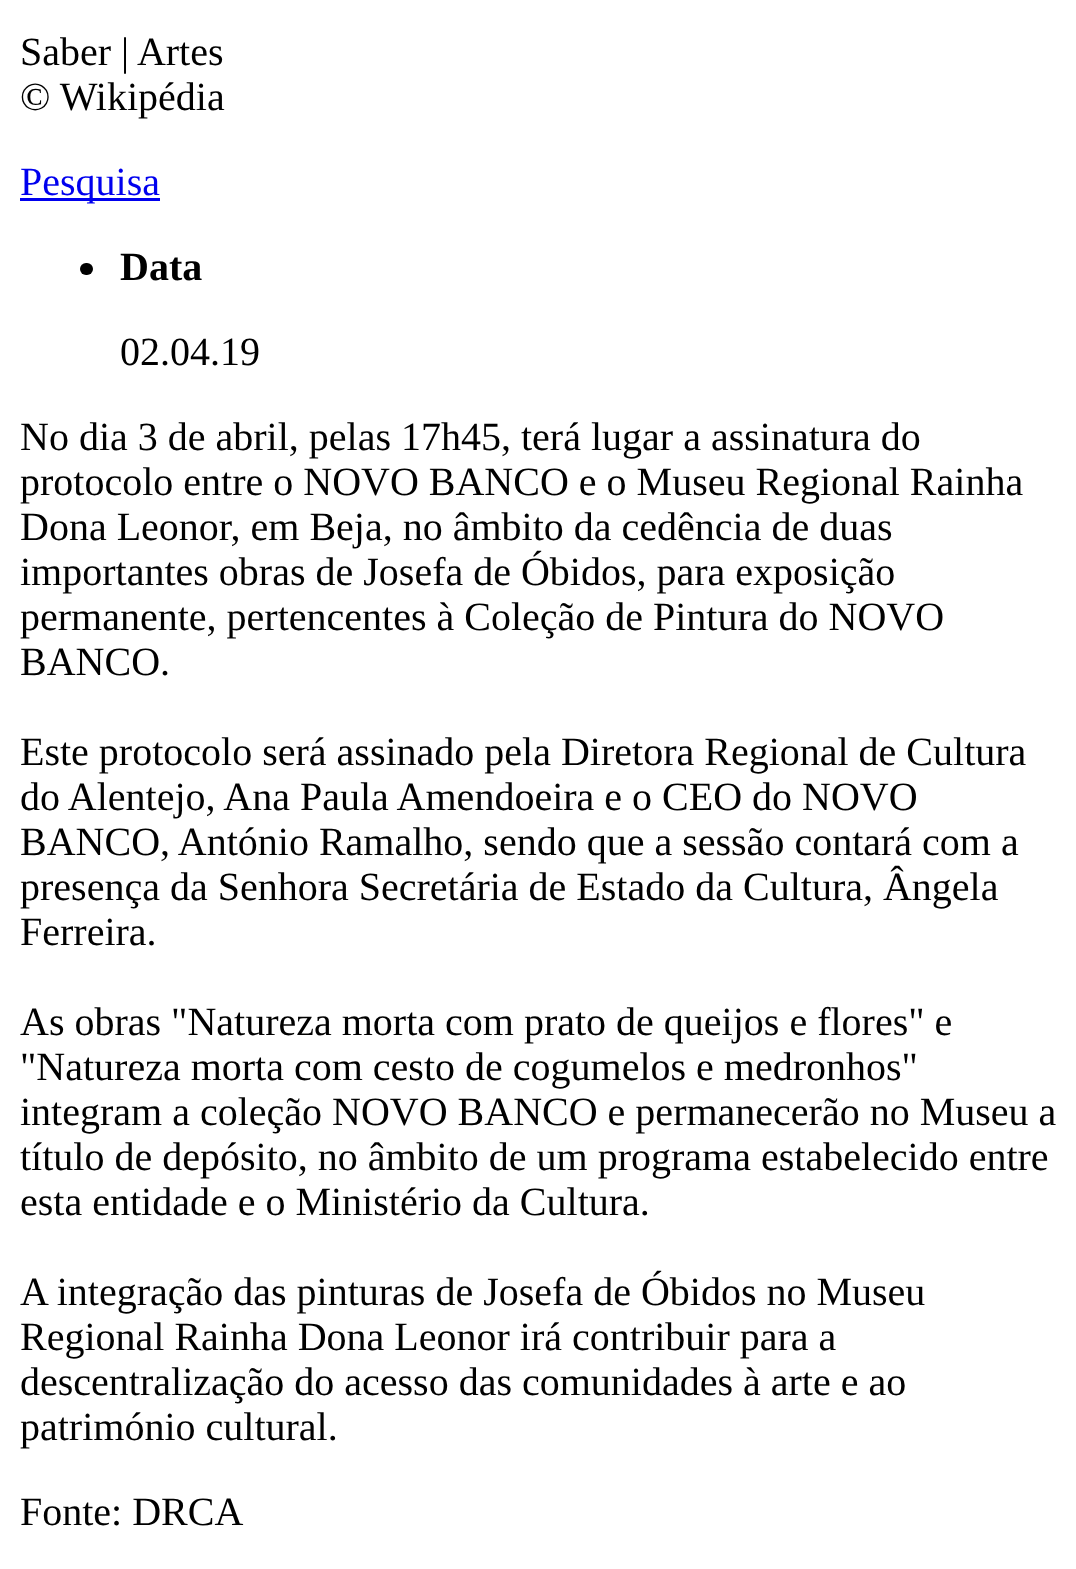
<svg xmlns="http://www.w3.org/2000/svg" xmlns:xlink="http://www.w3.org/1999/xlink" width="1076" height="1569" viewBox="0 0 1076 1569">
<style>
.cls-1{font:40px Liberation Serif;fill:#000000}
.cls-2{font:40px Liberation Serif;fill:#0000ee}
.cls-3{font:bold 40px Liberation Serif;fill:#000000}
</style>
<rect width="100%" height="100%" fill="#ffffff"/>
<rect fill="#0000ee" x="20" y="198" width="140" height="3"/>
<rect fill="#000000" x="80" y="263" width="13" height="12" rx="6"/>
<text class="cls-1"><tspan x="20" y="65">Saber | Artes</tspan><tspan x="20" y="110">© Wikipédia</tspan></text>
<text class="cls-2" x="20" y="195">Pesquisa</text>
<text class="cls-3" x="120" y="280">Data</text>
<text class="cls-1" x="120" y="365">02.04.19</text>
<text class="cls-1"><tspan x="20" y="450">No dia 3 de abril, pelas 17h45, terá lugar a assinatura do</tspan><tspan x="20" y="495">protocolo entre o NOVO BANCO e o Museu Regional Rainha</tspan><tspan x="20" y="540">Dona Leonor, em Beja, no âmbito da cedência de duas</tspan><tspan x="20" y="585">importantes obras de Josefa de Óbidos, para exposição</tspan><tspan x="20" y="630">permanente, pertencentes à Coleção de Pintura do NOVO</tspan><tspan x="20" y="675">BANCO.</tspan></text>
<text class="cls-1"><tspan x="20" y="765">Este protocolo será assinado pela Diretora Regional de Cultura</tspan><tspan x="20" y="810">do Alentejo, Ana Paula Amendoeira e o CEO do NOVO</tspan><tspan x="20" y="855">BANCO, António Ramalho, sendo que a sessão contará com a</tspan><tspan x="20" y="900">presença da Senhora Secretária de Estado da Cultura, Ângela</tspan><tspan x="20" y="945">Ferreira.</tspan></text>
<text class="cls-1"><tspan x="20" y="1035">As obras "Natureza morta com prato de queijos e flores" e</tspan><tspan x="20" y="1080">"Natureza morta com cesto de cogumelos e medronhos"</tspan><tspan x="20" y="1125">integram a coleção NOVO BANCO e permanecerão no Museu a</tspan><tspan x="20" y="1170">título de depósito, no âmbito de um programa estabelecido entre</tspan><tspan x="20" y="1215">esta entidade e o Ministério da Cultura.</tspan></text>
<text class="cls-1"><tspan x="20" y="1305">A integração das pinturas de Josefa de Óbidos no Museu</tspan><tspan x="20" y="1350">Regional Rainha Dona Leonor irá contribuir para a</tspan><tspan x="20" y="1395">descentralização do acesso das comunidades à arte e ao</tspan><tspan x="20" y="1440">património cultural.</tspan></text>
<text class="cls-1" x="20" y="1525">Fonte: DRCA</text>
</svg>
